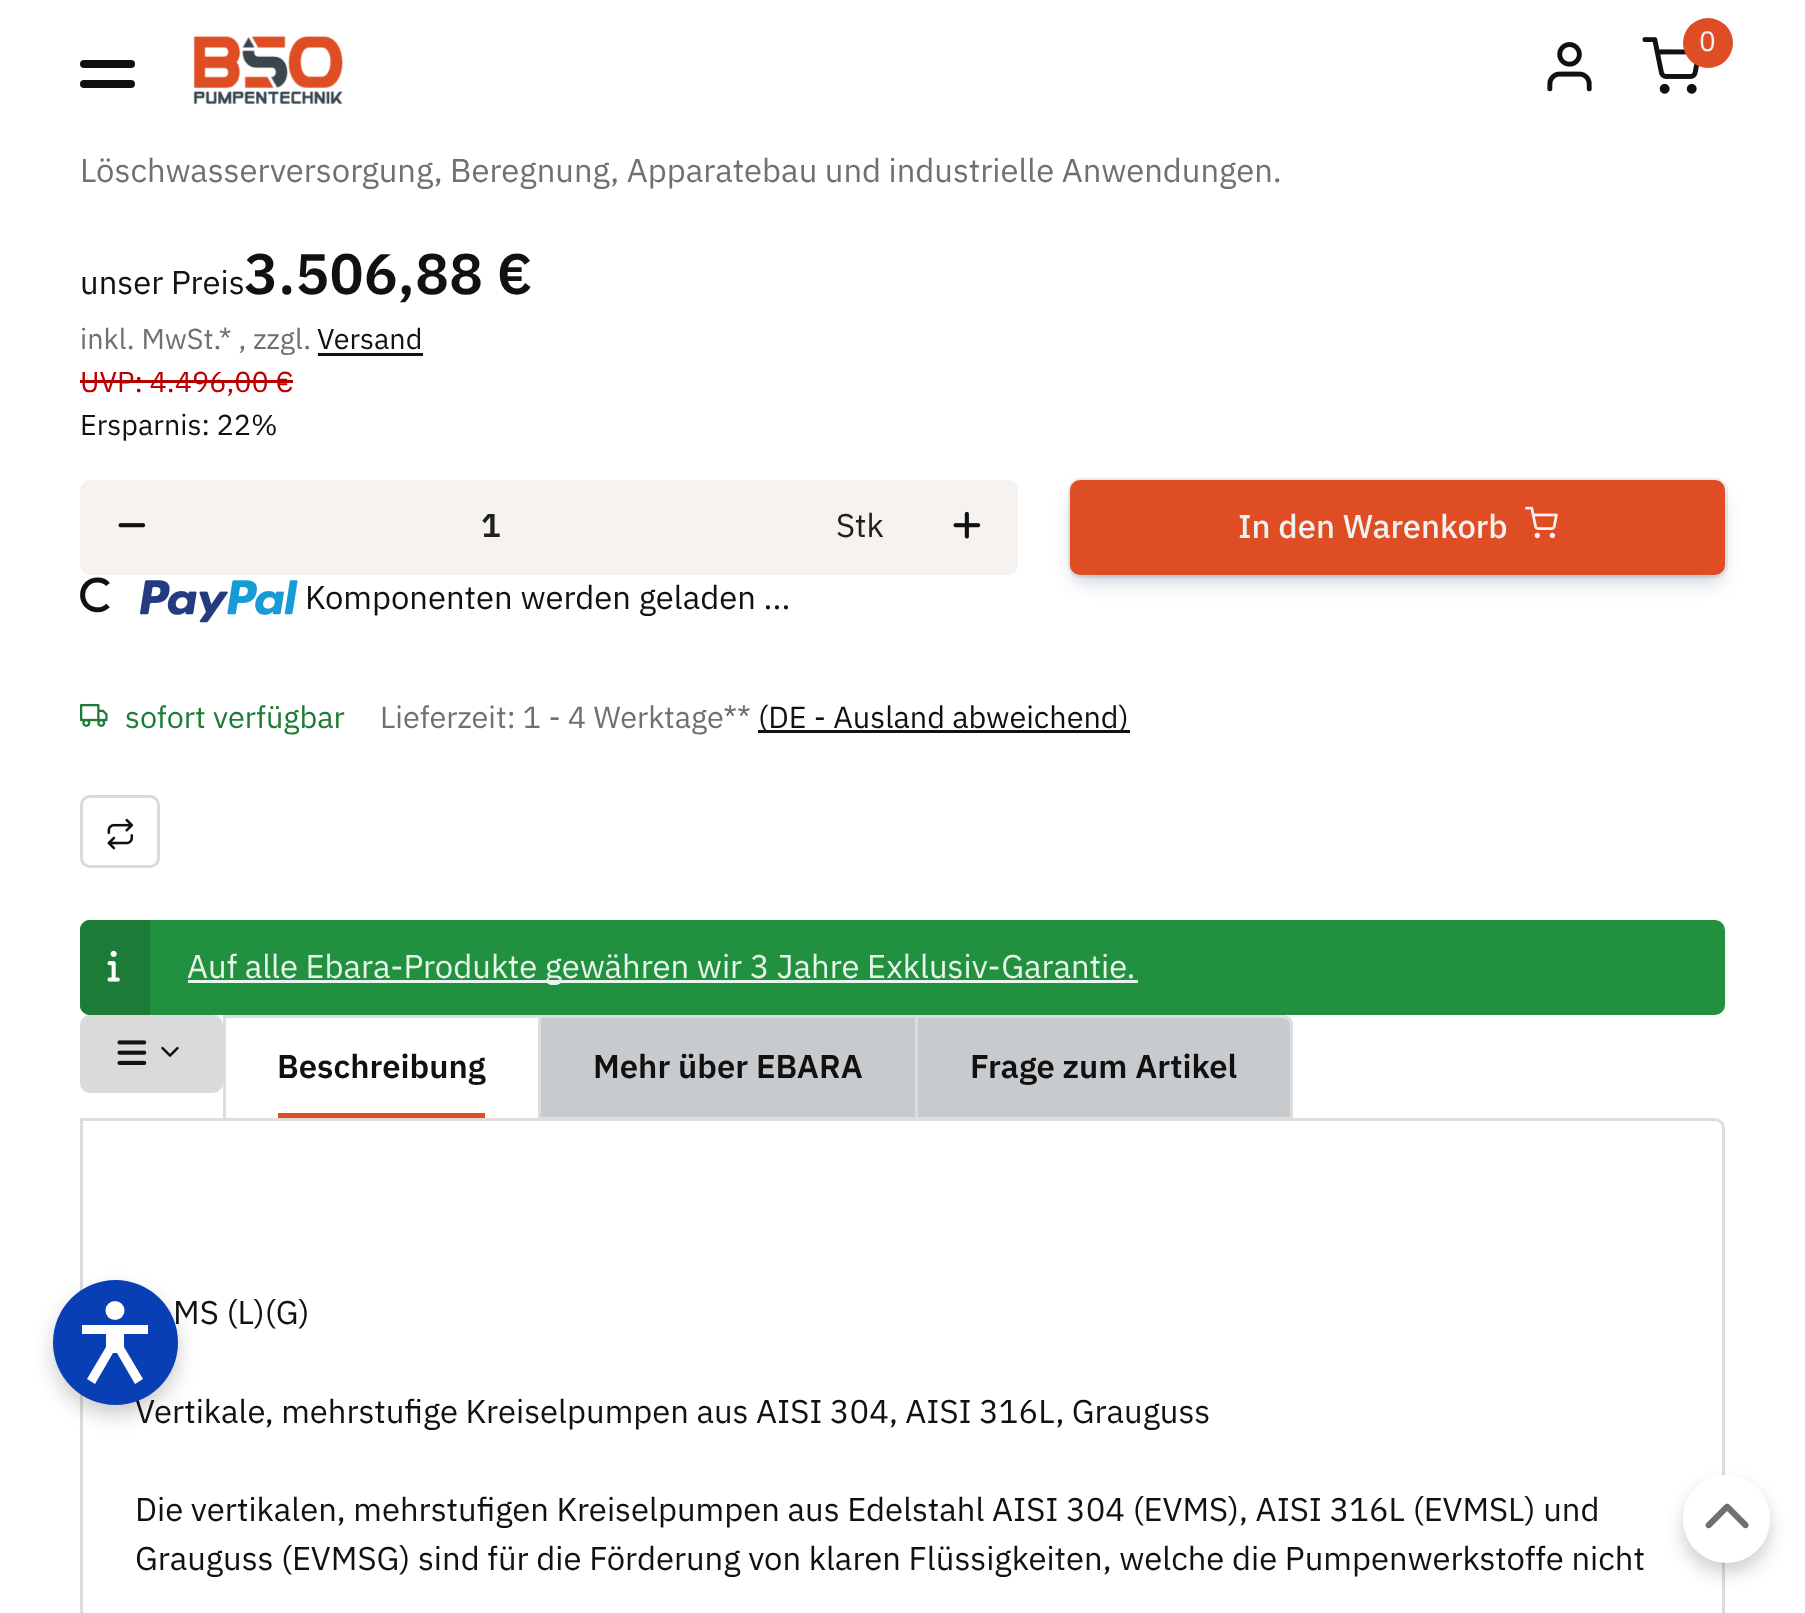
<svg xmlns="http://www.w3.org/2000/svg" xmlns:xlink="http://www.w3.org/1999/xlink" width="1805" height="1613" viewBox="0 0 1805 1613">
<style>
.cls-1{font:28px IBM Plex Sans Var;fill:#f2f2f2}
.cls-2{font:32.8px IBM Plex Sans Var;fill:#707070}
.cls-3{font:32.8px IBM Plex Sans Var;fill:#111111}
.cls-4{font:600 57px IBM Plex Sans Var;fill:#111111}
.cls-5{font:28.75px IBM Plex Sans Var;fill:#707070}
.cls-6{font:28.75px IBM Plex Sans Var;fill:#111111}
.cls-7{font:28.75px IBM Plex Sans Var;fill:#b90000}
.cls-8{font:600 32.8px IBM Plex Sans Var;fill:#202020}
.cls-9{font:32.8px IBM Plex Sans Var;fill:#202020}
.cls-10{font:500 32.8px IBM Plex Sans Var;fill:#f2f2f2}
.cls-11{font:30.6px IBM Plex Sans Var;fill:#1c7b36}
.cls-12{font:30.6px IBM Plex Sans Var;fill:#707070}
.cls-13{font:30.6px IBM Plex Sans Var;fill:#111111}
.cls-14{font:32.8px IBM Plex Sans Var;fill:#e9f4ec}
.cls-15{font:600 32.8px IBM Plex Sans Var;fill:#111111}
</style>
<defs>
<clipPath id="clip1"><rect x="80" y="1015" width="1645" height="103"/></clipPath>
</defs>
<rect width="100%" height="100%" fill="#ffffff"/>
<rect fill="#111111" x="80" y="60" width="55" height="8" rx="4"/>
<rect fill="#111111" x="80" y="80" width="55" height="8" rx="4"/>
<image xlink:href="image0.png" x="193" y="36" width="151" height="69"/>
<image xlink:href="image1.png" x="1547" y="42" width="45" height="50"/>
<image xlink:href="image2.png" x="1642" y="37" width="57" height="57"/>
<circle fill="#de4d23" cx="1708" cy="43" r="25"/>
<rect fill="#111111" x="318" y="353" width="105" height="3"/>
<rect fill="#b90000" x="80" y="380" width="213" height="3"/>
<rect fill="#f5f2ef" stroke="#f5f2ef" stroke-width="3" x="81.5" y="481.5" width="935" height="92" rx="8.5"/>
<image xlink:href="image3.png" x="118" y="523" width="28" height="5"/>
<image xlink:href="image4.png" x="953" y="511" width="28" height="28"/>
<rect fill="none" stroke="#ebedf0" stroke-width="3" x="1069.5" y="479.5" width="657" height="97" rx="11.5"/>
<rect fill="#091e42" fill-opacity="0.25" filter="blur(10px)" x="1075" y="495" width="645" height="85" rx="4"/>
<rect fill="#de4d23" stroke="#de4d23" stroke-width="3" x="1071.5" y="481.5" width="652" height="92" rx="8.5"/>
<image xlink:href="image5.png" x="1525" y="506" width="33" height="33"/>
<path fill="none" stroke="#111111" stroke-width="5" d="M108 605.5C104.5 609 99.5 610.5 94.5 609.5C77 606 79.5 580 97.5 580C101.5 580 105.5 581.5 108 584.5"/>
<image xlink:href="image6.png" x="140" y="580" width="158" height="43"/>
<image xlink:href="image7.png" x="80" y="703" width="28" height="24"/>
<rect fill="#111111" x="758" y="730" width="372" height="3"/>
<rect fill="none" stroke="#dadada" stroke-width="3" x="81.5" y="796.5" width="77" height="70" rx="8.5"/>
<image xlink:href="image8.png" x="107" y="818" width="27" height="32"/>
<rect fill="#21903f" x="80" y="920" width="1645" height="95" rx="10"/>
<path fill="#1c7b36" d="M90 920H150V1015H90C84.5 1015 80 1010.5 80 1005V930C80 924.5 84.5 920 90 920Z"/>
<image xlink:href="image9.png" x="107" y="950" width="13" height="32"/>
<rect fill="#e9f4ec" x="188" y="980" width="950" height="3"/>
<rect fill="#dadada" stroke="#dadada" stroke-width="3" x="81.5" y="1016.5" width="140" height="75" rx="8.5"/>
<image xlink:href="image10.png" x="117" y="1040" width="30" height="25"/>
<image xlink:href="image11.png" x="161" y="1046" width="18" height="11"/>
<rect fill="#dddddd" x="223" y="1015" width="317" height="3"/>
<rect fill="#dddddd" x="223" y="1015" width="3" height="103"/>
<rect fill="#de4d23" x="278" y="1113" width="207" height="5"/>
<rect fill="#c8cbcd" x="541" y="1018" width="374" height="99"/>
<path fill="none" stroke="#dddddd" stroke-width="3" d="M81.5 1119.5H1715C1719.5 1119.5 1723.5 1123.5 1723.5 1128V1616C1723.5 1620.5 1719.5 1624.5 1715 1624.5H90C85.5 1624.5 81.5 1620.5 81.5 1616Z"/>
<g clip-path="url(#clip1)">
<rect fill="none" stroke="#dddddd" stroke-width="3" x="539.5" y="1016.5" width="377" height="102"/>
</g>
<path fill="#c8cbcd" d="M915 1015H1283C1288.5 1015 1293 1019.5 1293 1025V1118H915Z"/>
<g clip-path="url(#clip1)">
<path fill="none" stroke="#dddddd" stroke-width="3" d="M916.5 1016.5H1283C1287.5 1016.5 1291.5 1020.5 1291.5 1025V1118.5H916.5Z"/>
</g>
<rect fill="#000000" fill-opacity="0.2" filter="blur(10px)" x="53" y="1290" width="125" height="125" rx="62.5"/>
<rect fill="#111111" fill-opacity="0.2" filter="blur(9px)" x="1683" y="1485" width="87" height="88" rx="43.5"/>
<rect fill="#ffffff" x="1683" y="1475" width="87" height="88" rx="43.5"/>
<image xlink:href="image12.png" x="1705" y="1503" width="44" height="26"/>
<text class="cls-1" x="1699" y="51">0</text>
<text class="cls-2" x="80" y="182" word-spacing="-0.25">Löschwasserversorgung, Beregnung, Apparatebau und industrielle Anwendungen.</text>
<text class="cls-3" x="80" y="294">unser Preis</text>
<text class="cls-4" x="244" y="294">3.506,88 €</text>
<text class="cls-5" x="80" y="349">inkl. MwSt.* , zzgl.</text>
<text class="cls-6" x="317" y="349">Versand</text>
<text class="cls-7" x="80" y="392">UVP: 4.496,00 €</text>
<text class="cls-6" x="80" y="435">Ersparnis: 22%</text>
<text class="cls-8" x="481" y="537">1</text>
<text class="cls-9" x="836" y="537">Stk</text>
<text class="cls-10" x="1238" y="538">In den Warenkorb</text>
<text class="cls-3" x="305" y="609">Komponenten werden geladen ...</text>
<text class="cls-11" x="125" y="728">sofort verfügbar</text>
<text class="cls-12" x="380" y="728">Lieferzeit: 1 - 4 Werktage**</text>
<text class="cls-13" x="758" y="728">(DE - Ausland abweichend)</text>
<text class="cls-14" x="187" y="978" word-spacing="-0.25">Auf alle Ebara-Produkte gewähren wir 3 Jahre Exklusiv-Garantie.</text>
<text class="cls-15" x="277" y="1078">Beschreibung</text>
<text class="cls-15" x="593" y="1078">Mehr über EBARA</text>
<text class="cls-15" x="970" y="1078">Frage zum Artikel</text>
<text class="cls-3" x="173" y="1324">MS (L)(G)</text>
<text class="cls-3" x="135" y="1423" word-spacing="-0.25">Vertikale, mehrstufige Kreiselpumpen aus AISI 304, AISI 316L, Grauguss</text>
<text class="cls-3"><tspan x="135" y="1521" word-spacing="-0.1">Die vertikalen, mehrstufigen Kreiselpumpen aus Edelstahl AISI 304 (EVMS), AISI 316L (EVMSL) und</tspan><tspan x="135" y="1570" word-spacing="-0.1">Grauguss (EVMSG) sind für die Förderung von klaren Flüssigkeiten, welche die Pumpenwerkstoffe nicht</tspan></text>
<circle fill="#093fb4" cx="115.5" cy="1342.5" r="62.5"/>
<path fill="#ffffff" d="M148 1334V1325H82V1334H106V1347L87 1379L95 1384L113 1353H117L135 1384L143 1379L124 1347V1334Z"/>
<circle fill="#ffffff" cx="115" cy="1310.5" r="9.5"/>
</svg>
